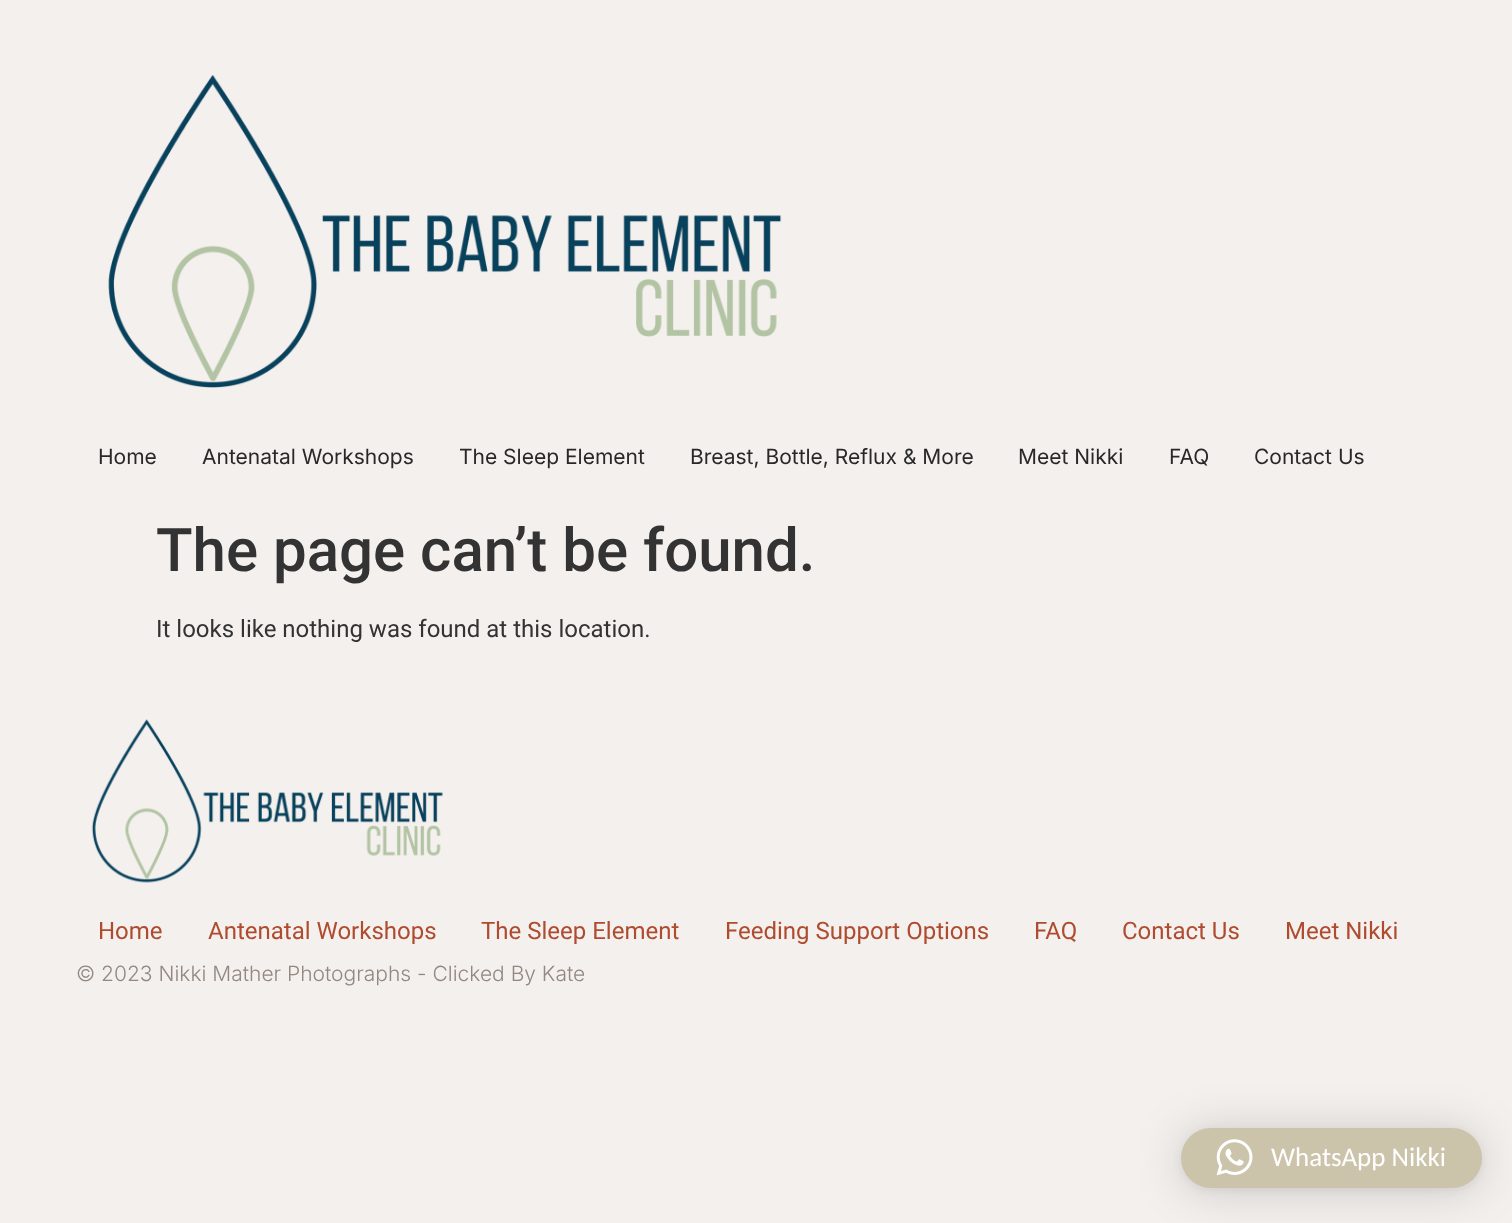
<svg xmlns="http://www.w3.org/2000/svg" xmlns:xlink="http://www.w3.org/1999/xlink" width="1512" height="1223" viewBox="0 0 1512 1223">
<style>
.cls-1{font:21px Inter;fill:#282828}
.cls-2{font:500 60px Roboto;fill:#333333}
.cls-3{font:24px Roboto;fill:#333333}
.cls-4{font:24px Roboto;fill:#af4b2f}
.cls-5{font:300 21px Inter;fill:#928781}
.cls-6{font:27px Carlito;fill:#ffffff}
</style>
<rect width="100%" height="100%" fill="#f4f0ee"/>
<image xlink:href="image0.png" x="108" y="75" width="674" height="313"/>
<image xlink:href="image1.png" x="91" y="719" width="352" height="164"/>
<rect fill="#000000" fill-opacity="0.16" filter="blur(24px)" x="1181" y="1131" width="301" height="60" rx="30"/>
<rect fill="#000000" fill-opacity="0.06" filter="blur(4.5px)" x="1181" y="1130" width="301" height="60" rx="30"/>
<rect fill="#ccc3ab" x="1181" y="1128" width="301" height="60" rx="30"/>
<image xlink:href="image2.png" x="1216" y="1139" width="37" height="37"/>
<text class="cls-1" x="98" y="464">Home</text>
<text class="cls-1" x="202" y="464">Antenatal Workshops</text>
<text class="cls-1" x="459" y="464">The Sleep Element</text>
<text class="cls-1" x="690" y="464">Breast, Bottle, Reflux &amp; More</text>
<text class="cls-1" x="1018" y="464">Meet Nikki</text>
<text class="cls-1" x="1169" y="464">FAQ</text>
<text class="cls-1" x="1254" y="464">Contact Us</text>
<text class="cls-2" x="156" y="571">The page can’t be found.</text>
<text class="cls-3" x="156" y="637">It looks like nothing was found at this location.</text>
<text class="cls-4" x="98" y="939">Home</text>
<text class="cls-4" x="208" y="939">Antenatal Workshops</text>
<text class="cls-4" x="481" y="939">The Sleep Element</text>
<text class="cls-4" x="725" y="939">Feeding Support Options</text>
<text class="cls-4" x="1034" y="939">FAQ</text>
<text class="cls-4" x="1122" y="939">Contact Us</text>
<text class="cls-4" x="1285" y="939">Meet Nikki</text>
<text class="cls-5" x="76" y="981">© 2023 Nikki Mather Photographs - Clicked By Kate</text>
<text class="cls-6" x="1271" y="1166">WhatsApp Nikki</text>
</svg>
